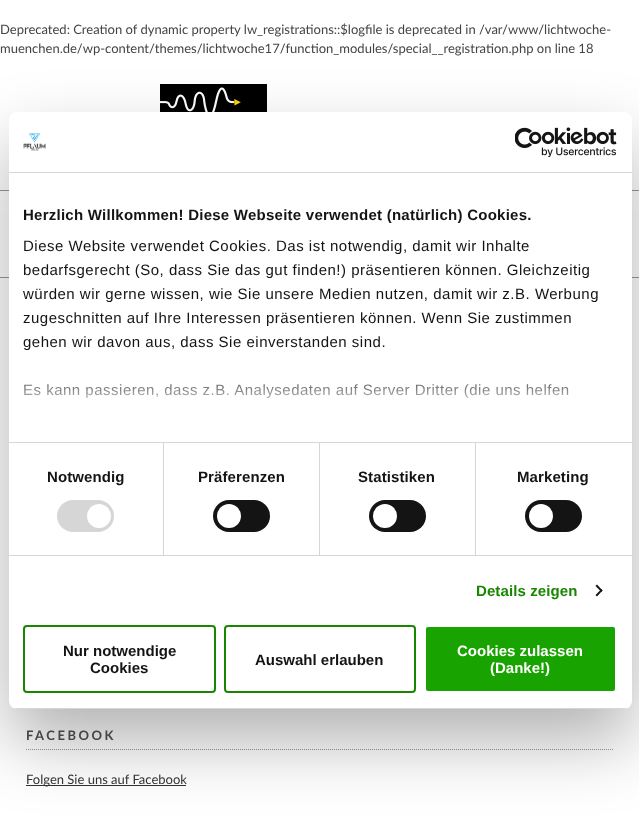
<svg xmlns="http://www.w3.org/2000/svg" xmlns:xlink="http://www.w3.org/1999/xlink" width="639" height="821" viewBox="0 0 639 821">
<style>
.cls-1{font:13px Lato;fill:#444444}
.cls-2{font:bold 15px Liberation Sans;letter-spacing:0.25px;fill:#141414}
.cls-3{font:15px Liberation Sans;letter-spacing:0.5px;fill:#141414}
.cls-4{font:bold 15px Liberation Sans;letter-spacing:0.1px;fill:#141414}
.cls-5{font:bold 15px Liberation Sans;letter-spacing:0.1px;fill:#188600}
.cls-6{font:bold 15px Liberation Sans;fill:#141414}
.cls-7{font:bold 15px Liberation Sans;fill:#ffffff}
.cls-8{font:bold 13px Lato;letter-spacing:2.5px;fill:#444444}
.cls-9{font:13px Lato;fill:#333333}
</style>
<defs>
<clipPath id="clip1"><rect x="9" y="112" width="623" height="597" rx="8"/></clipPath>
<linearGradient id="g1" gradientUnits="userSpaceOnUse" x1="314" y1="442" x2="314" y2="367"><stop offset="0" stop-color="#ffffff"/><stop offset="0.5" stop-color="#ffffff" stop-opacity="0.8"/><stop offset="1" stop-color="#ffffff" stop-opacity="0"/></linearGradient>
</defs>
<rect width="100%" height="100%" fill="#ffffff"/>
<image xlink:href="image0.png" x="160" y="84" width="107" height="28"/>
<rect fill="#999999" x="0" y="190" width="639" height="1"/>
<rect fill="#999999" x="0" y="277" width="639" height="1"/>
<path fill="none" stroke="#999999" stroke-dasharray="1 1" d="M26 749.5H613"/>
<rect fill="#333333" x="26" y="785" width="160" height="1"/>
<rect fill="#000000" fill-opacity="0.3" filter="blur(34px)" x="9" y="144" width="623" height="597" rx="8"/>
<rect fill="#ffffff" x="9" y="112" width="623" height="597" rx="8"/>
<rect fill="#d6d6d6" x="9" y="172" width="623" height="1"/>
<image xlink:href="image1.png" x="23" y="132" width="23" height="19"/>
<image xlink:href="image2.png" x="515" y="127" width="102" height="30"/>
<rect fill="#d6d6d6" x="9" y="442" width="623" height="1"/>
<rect fill="#d6d6d6" x="9" y="555" width="623" height="1"/>
<rect fill="#d6d6d6" x="163" y="443" width="1" height="112"/>
<rect fill="#d6d6d6" x="57" y="500" width="57" height="32" rx="16"/>
<circle fill="#ffffff" cx="99" cy="516" r="12"/>
<rect fill="#d6d6d6" x="319" y="443" width="1" height="112"/>
<rect fill="#141414" x="213" y="500" width="57" height="32" rx="16"/>
<circle fill="#ffffff" cx="229" cy="516" r="12"/>
<rect fill="#d6d6d6" x="475" y="443" width="1" height="112"/>
<rect fill="#141414" x="369" y="500" width="57" height="32" rx="16"/>
<circle fill="#ffffff" cx="385" cy="516" r="12"/>
<rect fill="#141414" x="525" y="500" width="57" height="32" rx="16"/>
<circle fill="#ffffff" cx="541" cy="516" r="12"/>
<path fill="#141414" d="M597 584.5L602.5 590.5L601.5 592L595.5 586Z"/>
<path fill="#141414" d="M601.5 589L602.5 590.5L597 596.5L595.5 595Z"/>
<g clip-path="url(#clip1)">
<rect fill="#d6d6d6" x="9" y="708" width="623" height="1"/>
</g>
<rect fill="none" stroke="#188600" stroke-width="2" x="24" y="626" width="191" height="66" rx="3"/>
<rect fill="none" stroke="#188600" stroke-width="2" x="225" y="626" width="190" height="66" rx="3"/>
<rect fill="#18a300" stroke="#ffffff" stroke-width="2" x="425" y="626" width="191" height="66" rx="3"/>
<text class="cls-1"><tspan x="0" y="34">Deprecated: Creation of dynamic property lw_registrations::$logfile is deprecated in /var/www/lichtwoche-</tspan><tspan x="0" y="53">muenchen.de/wp-content/themes/lichtwoche17/function_modules/special__registration.php on line 18</tspan></text>
<text class="cls-2" x="23" y="220">Herzlich Willkommen! Diese Webseite verwendet (natürlich) Cookies.</text>
<text class="cls-3"><tspan x="23" y="251">Diese Website verwendet Cookies. Das ist notwendig, damit wir Inhalte</tspan><tspan x="23" y="275">bedarfsgerecht (So, dass Sie das gut finden!) präsentieren können. Gleichzeitig</tspan><tspan x="23" y="299">würden wir gerne wissen, wie Sie unsere Medien nutzen, damit wir z.B. Werbung</tspan><tspan x="23" y="323">zugeschnitten auf Ihre Interessen präsentieren können. Wenn Sie zustimmen</tspan><tspan x="23" y="347">gehen wir davon aus, dass Sie einverstanden sind.</tspan></text>
<text class="cls-3" x="23" y="395">Es kann passieren, dass z.B. Analysedaten auf Server Dritter (die uns helfen</text>
<rect fill="url(#g1)" x="24" y="384" width="545" height="15"/>
<text class="cls-4" x="47" y="482">Notwendig</text>
<text class="cls-4" x="198" y="482">Präferenzen</text>
<text class="cls-4" x="358" y="482">Statistiken</text>
<text class="cls-4" x="517" y="482">Marketing</text>
<text class="cls-5" x="476" y="596">Details zeigen</text>
<text class="cls-6" x="63" y="656">Nur notwendige</text>
<text class="cls-6" x="90" y="673">Cookies</text>
<text class="cls-6" x="255" y="665">Auswahl erlauben</text>
<text class="cls-7" x="457" y="656">Cookies zulassen</text>
<text class="cls-7" x="490" y="673">(Danke!)</text>
<text class="cls-8" x="26" y="740">FACEBOOK</text>
<text class="cls-9" x="26" y="784">Folgen Sie uns auf Facebook</text>
</svg>
